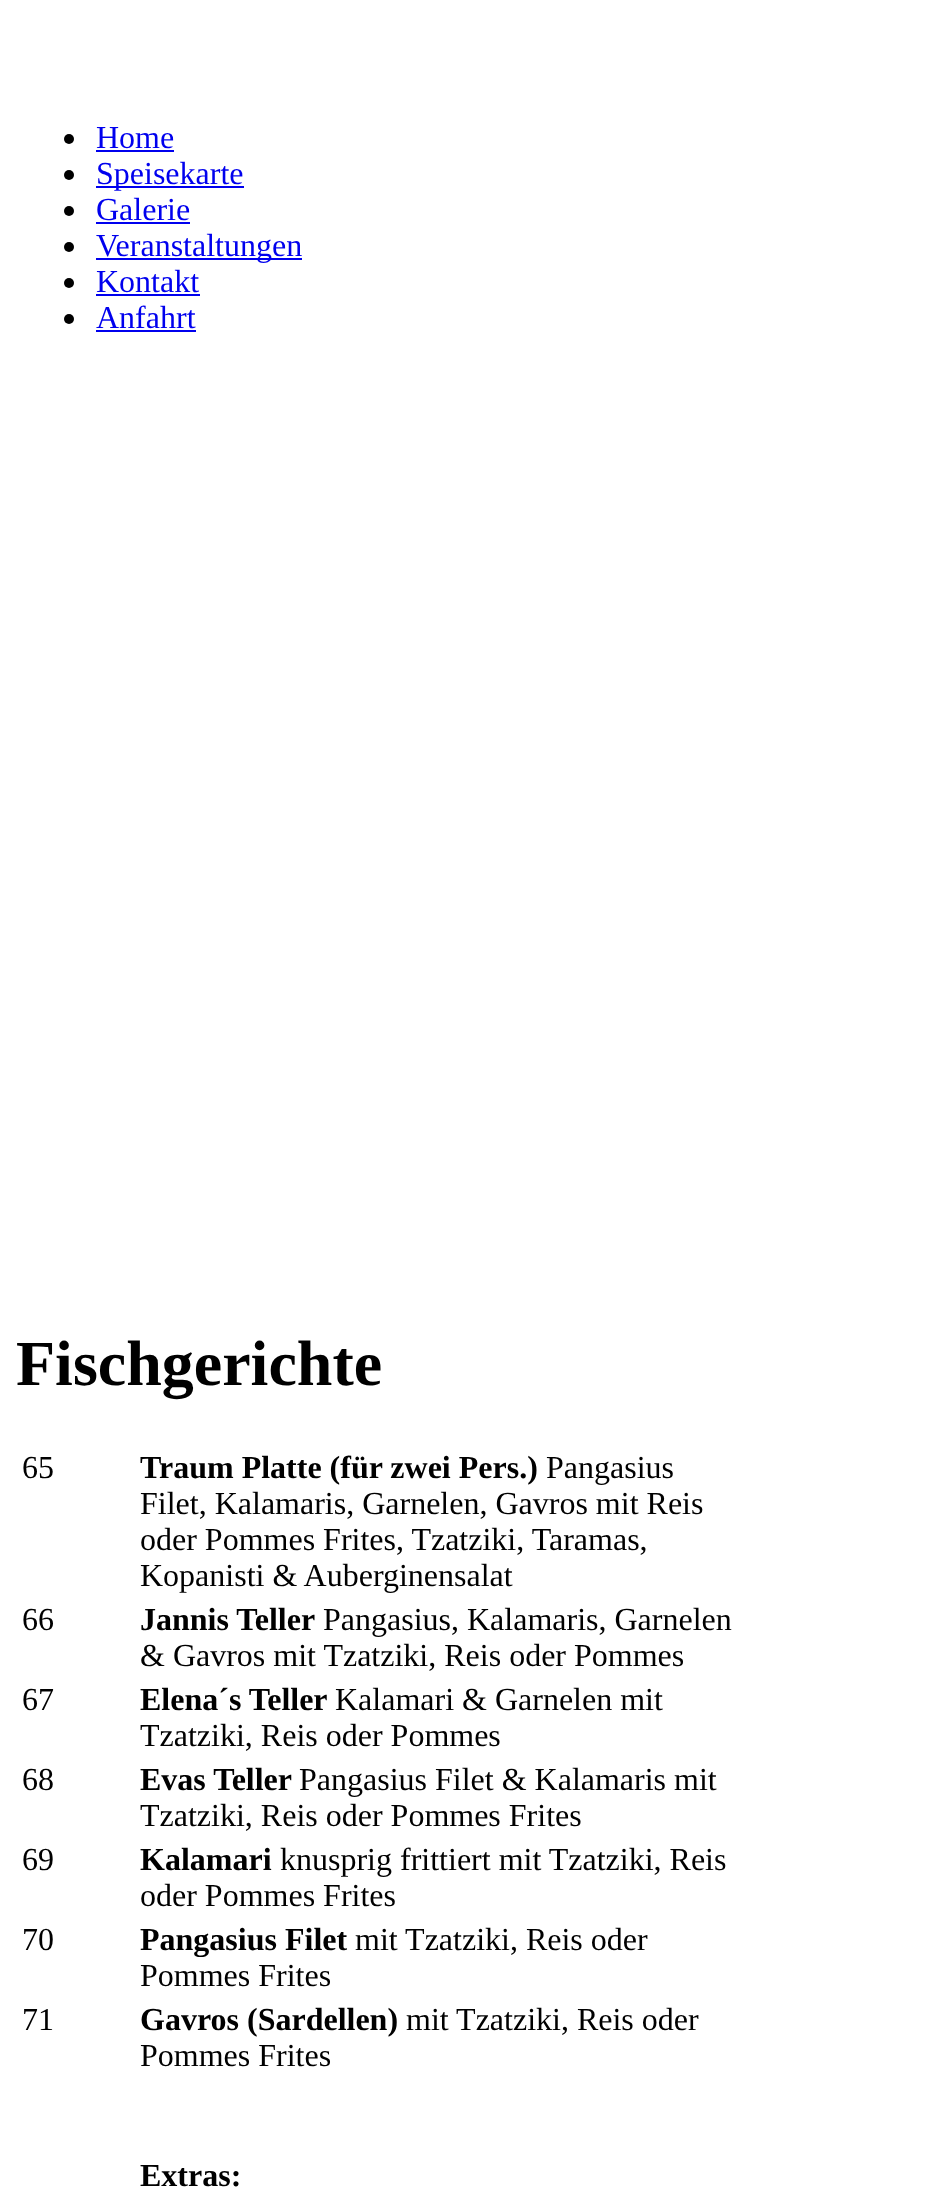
<svg xmlns="http://www.w3.org/2000/svg" xmlns:xlink="http://www.w3.org/1999/xlink" width="944" height="2196" viewBox="0 0 944 2196">
<style>
.cls-1{font:32px Liberation Serif;fill:#0000ee}
.cls-2{font:bold 64px Liberation Serif;fill:#000000}
.cls-3{font:32px Liberation Serif;fill:#000000}
.cls-4{font:bold 32px Liberation Serif;fill:#000000}
</style>
<rect width="100%" height="100%" fill="#ffffff"/>
<circle fill="#000000" cx="69" cy="139" r="5"/>
<rect fill="#0000ee" x="96" y="150" width="78" height="2"/>
<circle fill="#000000" cx="69" cy="175" r="5"/>
<rect fill="#0000ee" x="96" y="186" width="148" height="2"/>
<circle fill="#000000" cx="69" cy="211" r="5"/>
<rect fill="#0000ee" x="96" y="222" width="94" height="2"/>
<circle fill="#000000" cx="69" cy="247" r="5"/>
<rect fill="#0000ee" x="96" y="258" width="206" height="2"/>
<circle fill="#000000" cx="69" cy="283" r="5"/>
<rect fill="#0000ee" x="96" y="294" width="104" height="2"/>
<circle fill="#000000" cx="69" cy="319" r="5"/>
<rect fill="#0000ee" x="96" y="330" width="100" height="2"/>
<text class="cls-1"><tspan x="96" y="148">Home</tspan><tspan x="96" y="184">Speisekarte</tspan><tspan x="96" y="220">Galerie</tspan><tspan x="96" y="256">Veranstaltungen</tspan><tspan x="96" y="292">Kontakt</tspan><tspan x="96" y="328">Anfahrt</tspan></text>
<text class="cls-2" x="16" y="1385">Fischgerichte</text>
<text class="cls-3" x="22" y="1478">65</text>
<text class="cls-4" x="140" y="1478">Traum Platte (für zwei Pers.)</text>
<text class="cls-3" x="546" y="1478">Pangasius</text>
<text class="cls-3"><tspan x="140" y="1514">Filet, Kalamaris, Garnelen, Gavros mit Reis</tspan><tspan x="140" y="1550">oder Pommes Frites, Tzatziki, Taramas,</tspan><tspan x="140" y="1586">Kopanisti &amp; Auberginensalat</tspan></text>
<text class="cls-3" x="22" y="1630">66</text>
<text class="cls-4" x="140" y="1630">Jannis Teller</text>
<text class="cls-3" x="323" y="1630">Pangasius, Kalamaris, Garnelen</text>
<text class="cls-3" x="140" y="1666">&amp; Gavros mit Tzatziki, Reis oder Pommes</text>
<text class="cls-3" x="22" y="1710">67</text>
<text class="cls-4" x="140" y="1710">Elena´s Teller</text>
<text class="cls-3" x="335" y="1710">Kalamari &amp; Garnelen mit</text>
<text class="cls-3" x="140" y="1746">Tzatziki, Reis oder Pommes</text>
<text class="cls-3" x="22" y="1790">68</text>
<text class="cls-4" x="140" y="1790">Evas Teller</text>
<text class="cls-3" x="299" y="1790">Pangasius Filet &amp; Kalamaris mit</text>
<text class="cls-3" x="140" y="1826">Tzatziki, Reis oder Pommes Frites</text>
<text class="cls-3" x="22" y="1870">69</text>
<text class="cls-4" x="140" y="1870">Kalamari</text>
<text class="cls-3" x="280" y="1870">knusprig frittiert mit Tzatziki, Reis</text>
<text class="cls-3" x="140" y="1906">oder Pommes Frites</text>
<text class="cls-3" x="22" y="1950">70</text>
<text class="cls-4" x="140" y="1950">Pangasius Filet</text>
<text class="cls-3" x="355" y="1950">mit Tzatziki, Reis oder</text>
<text class="cls-3" x="140" y="1986">Pommes Frites</text>
<text class="cls-3" x="22" y="2030">71</text>
<text class="cls-4" x="140" y="2030">Gavros (Sardellen)</text>
<text class="cls-3" x="406" y="2030">mit Tzatziki, Reis oder</text>
<text class="cls-3" x="140" y="2066">Pommes Frites</text>
<text class="cls-4" x="140" y="2186">Extras:</text>
</svg>
